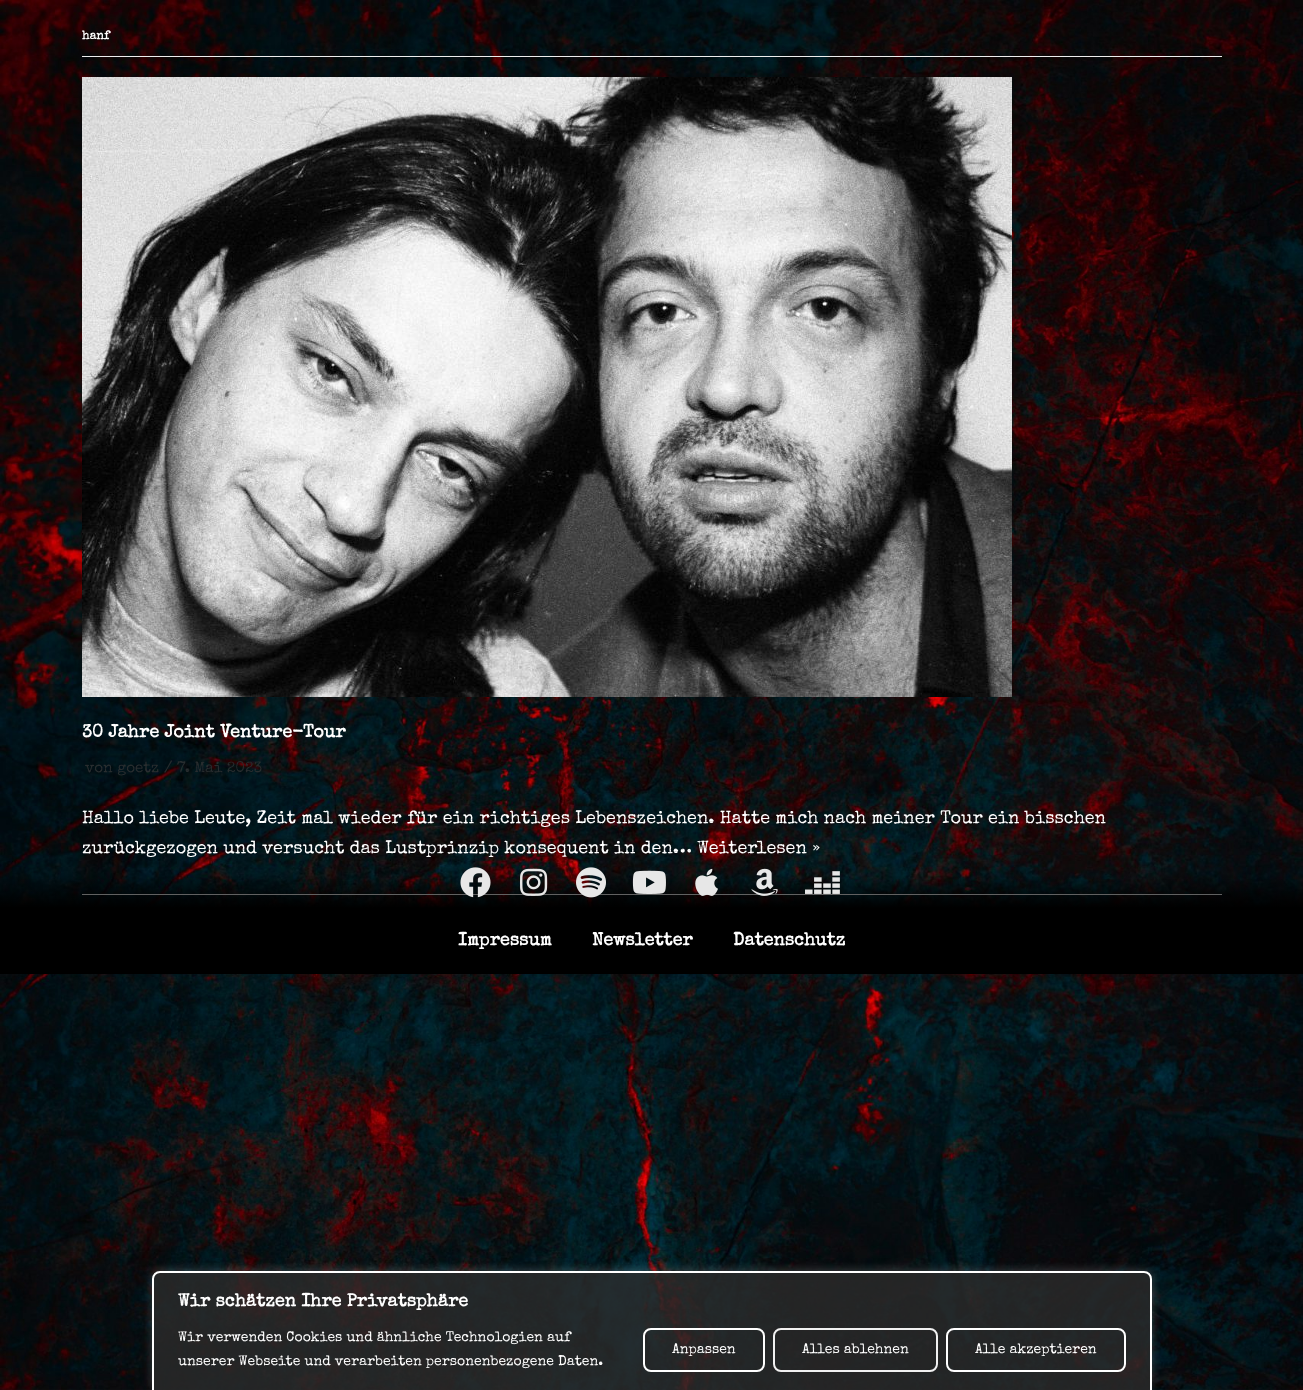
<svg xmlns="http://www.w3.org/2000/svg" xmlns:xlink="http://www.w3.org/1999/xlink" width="1303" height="1390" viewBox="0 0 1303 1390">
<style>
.cls-1{font:bold 12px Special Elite;fill:#ffffff}
.cls-2{font:bold 18px Special Elite;fill:#ffffff}
.cls-3{font:15.25px Special Elite;fill:#282d2f}
.cls-4{font:18px Special Elite;fill:#ffffff}
.cls-5{font:bold 18px 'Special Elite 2';fill:#ffffff}
.cls-6{font:14px Special Elite;fill:#ffffff}
</style>
<defs>
<linearGradient id="g1" gradientUnits="userSpaceOnUse" x1="652" y1="875" x2="652" y2="908"><stop offset="0" stop-color="#000000" stop-opacity="0"/><stop offset="1" stop-color="#000000"/></linearGradient>
<clipPath id="clip1"><path d="M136 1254H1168V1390H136ZM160 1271H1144C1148.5 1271 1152 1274.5 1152 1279V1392H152V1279C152 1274.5 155.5 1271 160 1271Z" clip-rule="evenodd"/></clipPath>
</defs>
<rect width="100%" height="100%" fill="#ffffff"/>
<image xlink:href="image0.png" x="0" y="0" width="1303" height="1390"/>
<rect fill="#ededed" x="82" y="56" width="1140" height="1"/>
<rect fill="#ededed" x="82" y="894" width="1140" height="1"/>
<image xlink:href="image1.png" x="82" y="77" width="930" height="620"/>
<rect fill="url(#g1)" x="0" y="876" width="1303" height="32"/>
<image xlink:href="image2.png" x="460" y="867" width="31" height="31"/>
<image xlink:href="image3.png" x="520" y="868" width="28" height="28"/>
<image xlink:href="image4.png" x="576" y="867" width="30" height="31"/>
<image xlink:href="image5.png" x="632" y="870" width="34" height="24"/>
<image xlink:href="image6.png" x="695" y="868" width="23" height="28"/>
<image xlink:href="image7.png" x="751" y="868" width="27" height="28"/>
<image xlink:href="image8.png" x="805" y="871" width="35" height="23"/>
<rect fill="#000000" x="0" y="908" width="1303" height="66"/>
<g clip-path="url(#clip1)">
<rect fill="#acabab" fill-opacity="0.3" filter="blur(5px)" x="152" y="1270" width="1000" height="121" rx="8"/>
</g>
<path fill="#2c2c2c" fill-opacity="0.8" stroke="#ffffff" stroke-width="2" d="M160 1272H1144C1148 1272 1151 1275 1151 1279V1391H153V1279C153 1275 156 1272 160 1272Z"/>
<rect fill="none" stroke="#ffffff" stroke-width="2" x="644" y="1329" width="120" height="42" rx="7"/>
<rect fill="none" stroke="#f1f1f1" stroke-width="2" x="774" y="1329" width="163" height="42" rx="7"/>
<rect fill="none" stroke="#ffffff" stroke-width="2" x="947" y="1329" width="178" height="42" rx="7"/>
<text class="cls-1" x="82" y="39">hanf</text>
<text class="cls-2" x="82" y="737">30 Jahre Joint Venture-Tour</text>
<text class="cls-3" x="85" y="772">von goetz</text>
<text class="cls-3" x="164" y="772">/</text>
<text class="cls-3" x="177" y="772">7. Mai 2023</text>
<text class="cls-4"><tspan x="82" y="823">Hallo liebe Leute, Zeit mal wieder für ein richtiges Lebenszeichen. Hatte mich nach meiner Tour ein bisschen</tspan><tspan x="82" y="853">zurückgezogen und versucht das Lustprinzip konsequent in den… Weiterlesen »</tspan></text>
<text class="cls-5" x="458" y="945">Impressum</text>
<text class="cls-5" x="592" y="945">Newsletter</text>
<text class="cls-5" x="733" y="945">Datenschutz</text>
<text class="cls-2" x="178" y="1306">Wir schätzen Ihre Privatsphäre</text>
<text class="cls-6"><tspan x="178" y="1341">Wir verwenden Cookies und ähnliche Technologien auf</tspan><tspan x="178" y="1365">unserer Webseite und verarbeiten personenbezogene Daten.</tspan></text>
<text class="cls-6" x="672" y="1353">Anpassen</text>
<text class="cls-6" x="802" y="1353">Alles ablehnen</text>
<text class="cls-6" x="975" y="1353">Alle akzeptieren</text>
</svg>
